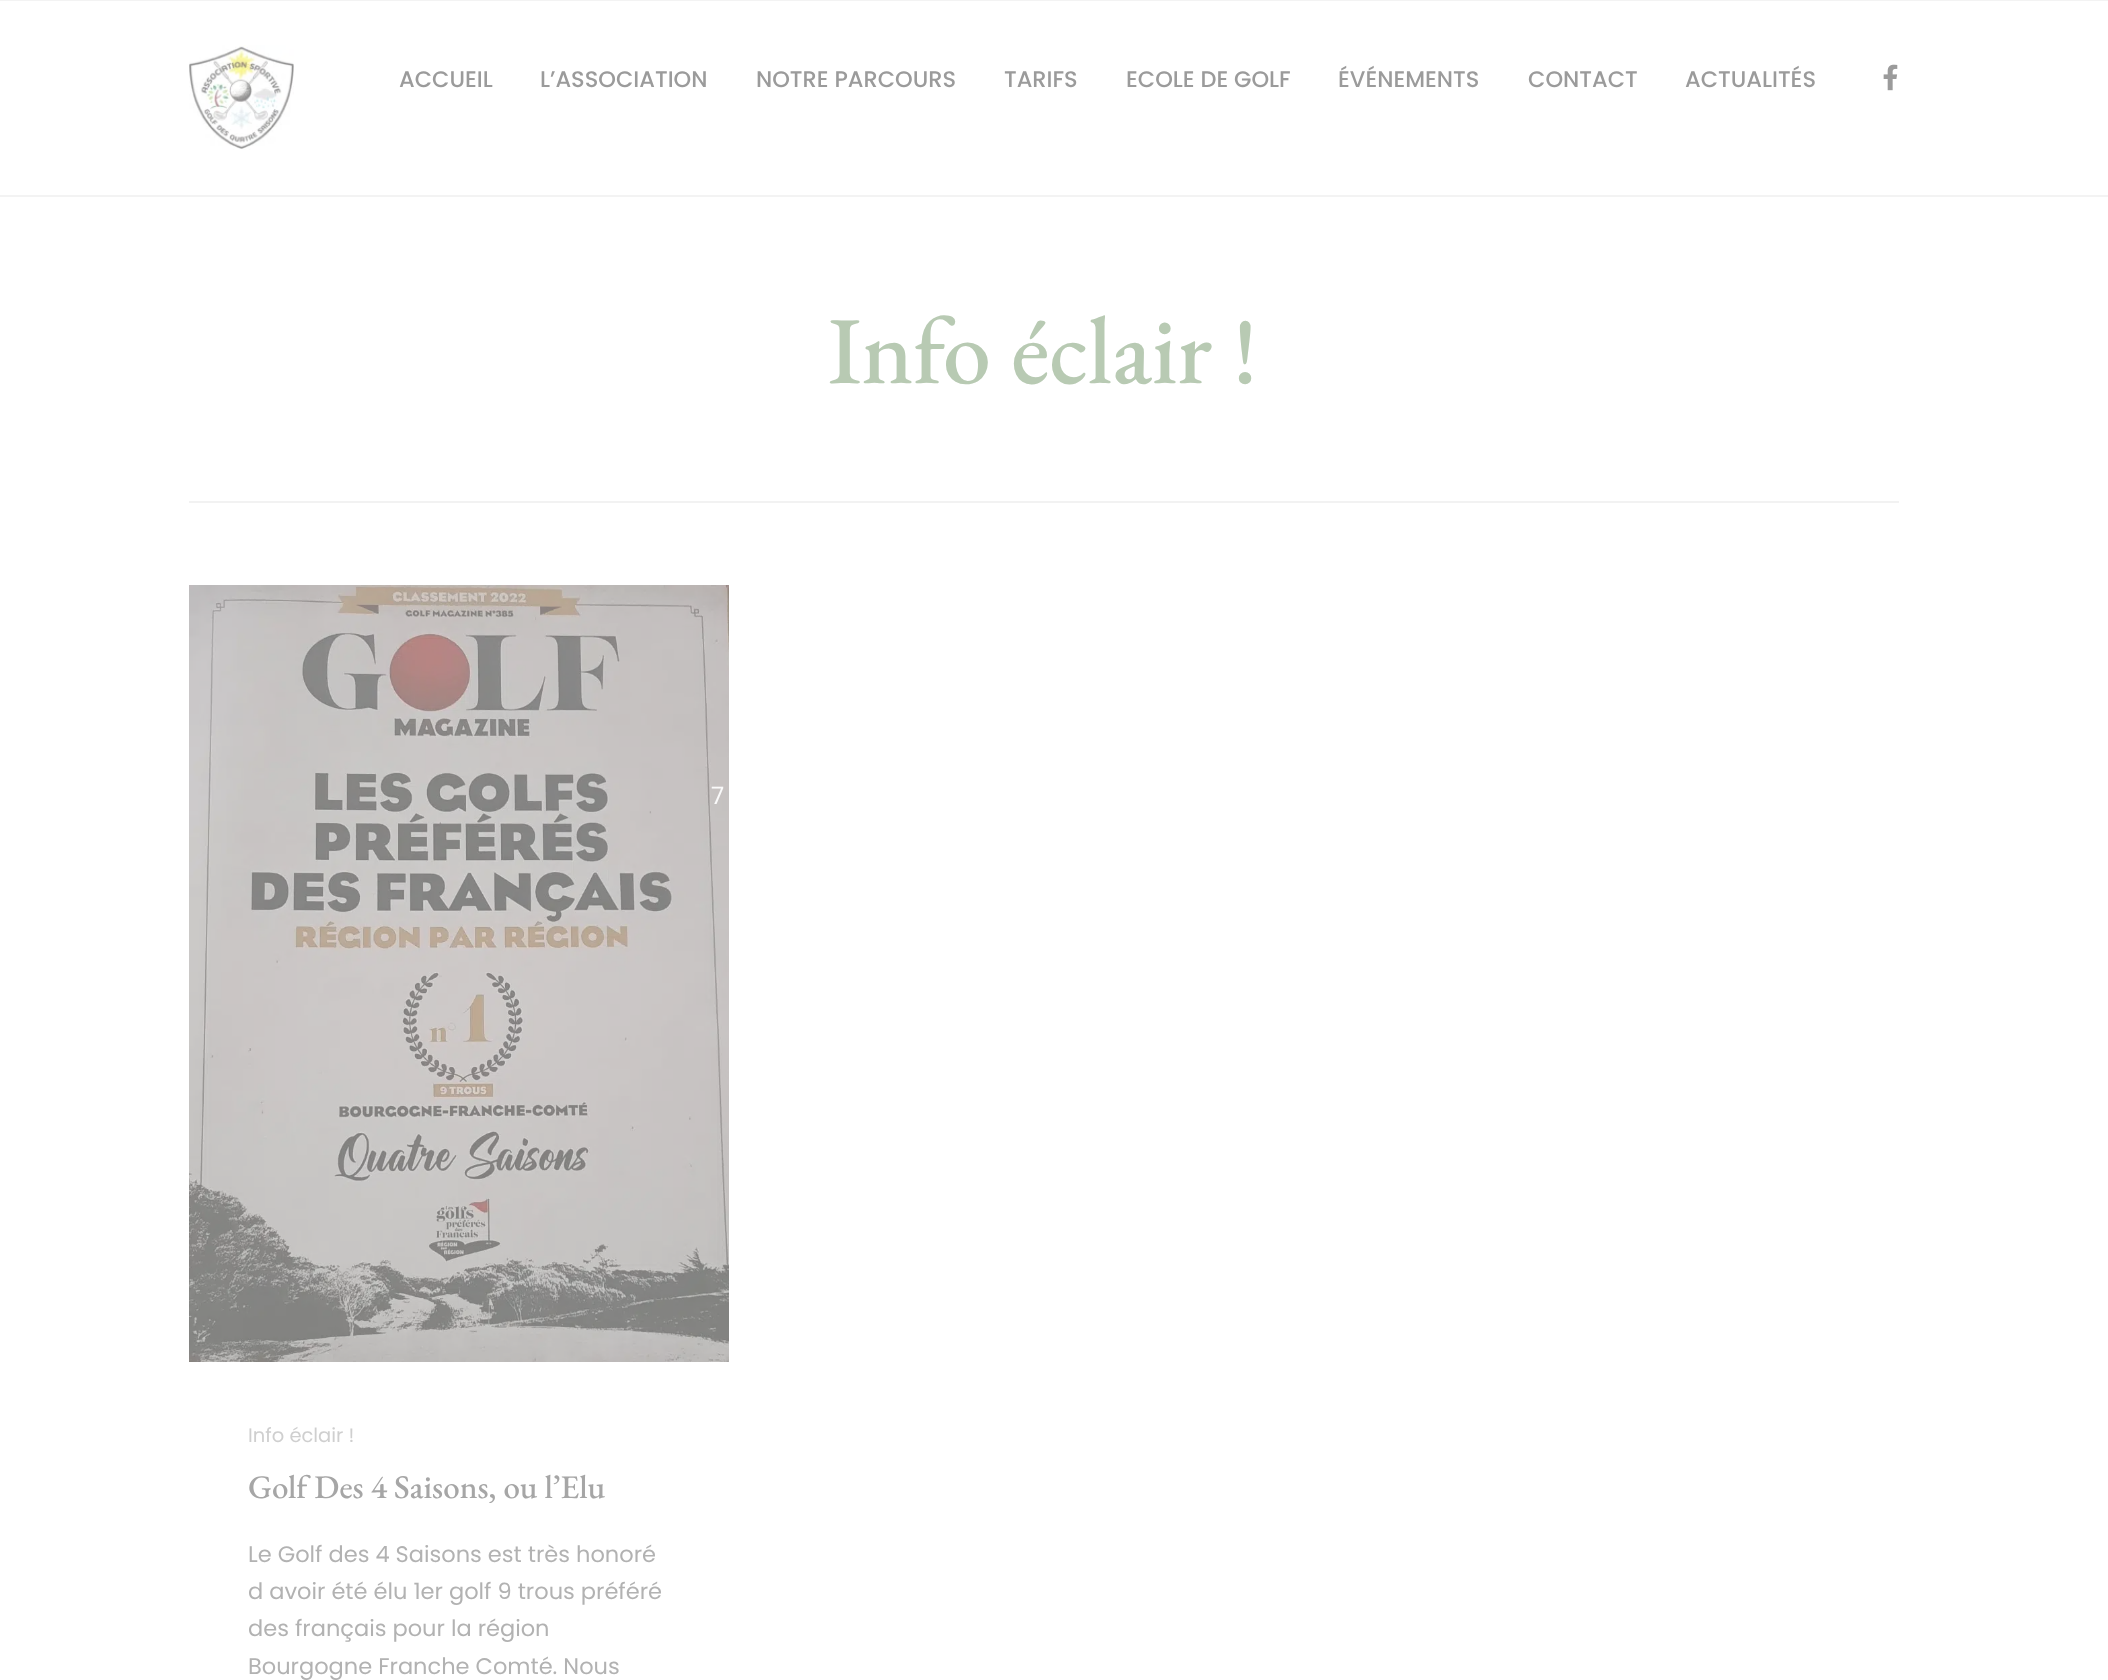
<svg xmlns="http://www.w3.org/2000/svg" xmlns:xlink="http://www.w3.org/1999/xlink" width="2108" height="1680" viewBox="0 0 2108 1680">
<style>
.cls-1{font:500 22.5px Poppins;fill:#9b9b9b}
.cls-2{font:500 96px EB Garamond;fill:#b8cab3}
.cls-3{font:19.5px Poppins;fill:#cfcfcf}
.cls-4{font:500 33px EB Garamond;fill:#a6a6a6}
.cls-5{font:22.5px Poppins;fill:#b2b2b2}
.cls-6{font:24px Poppins;fill:#fafafa}
</style>
<rect width="100%" height="100%" fill="#ffffff"/>
<rect fill="#f3f3f3" x="0" y="0" width="2108" height="1"/>
<rect fill="#f3f3f3" x="0" y="195" width="2108" height="2"/>
<image xlink:href="image0.png" x="189" y="45" width="105" height="105"/>
<image xlink:href="image1.png" x="1883" y="64" width="15" height="27"/>
<rect fill="#f2f2f2" x="189" y="501" width="1710" height="2"/>
<image xlink:href="image2.png" x="189" y="585" width="540" height="777"/>
<text class="cls-1" x="399" y="87">ACCUEIL</text>
<text class="cls-1" x="540" y="87">L’ASSOCIATION</text>
<text class="cls-1" x="756" y="87">NOTRE PARCOURS</text>
<text class="cls-1" x="1004" y="87">TARIFS</text>
<text class="cls-1" x="1126" y="87">ECOLE DE GOLF</text>
<text class="cls-1" x="1338" y="87">ÉVÉNEMENTS</text>
<text class="cls-1" x="1528" y="87">CONTACT</text>
<text class="cls-1" x="1685" y="87">ACTUALITÉS</text>
<text class="cls-2" x="828" y="383">Info éclair !</text>
<text class="cls-3" x="248" y="1442">Info éclair !</text>
<text class="cls-4" x="248" y="1498">Golf Des 4 Saisons, ou l’Elu</text>
<text class="cls-5"><tspan x="248" y="1562">Le Golf des 4 Saisons est très honoré</tspan><tspan x="248" y="1599">d avoir été élu 1er golf 9 trous préféré</tspan><tspan x="248" y="1636">des français pour la région</tspan><tspan x="248" y="1674">Bourgogne Franche Comté. Nous</tspan></text>
<text class="cls-6" x="711" y="804">7</text>
</svg>
